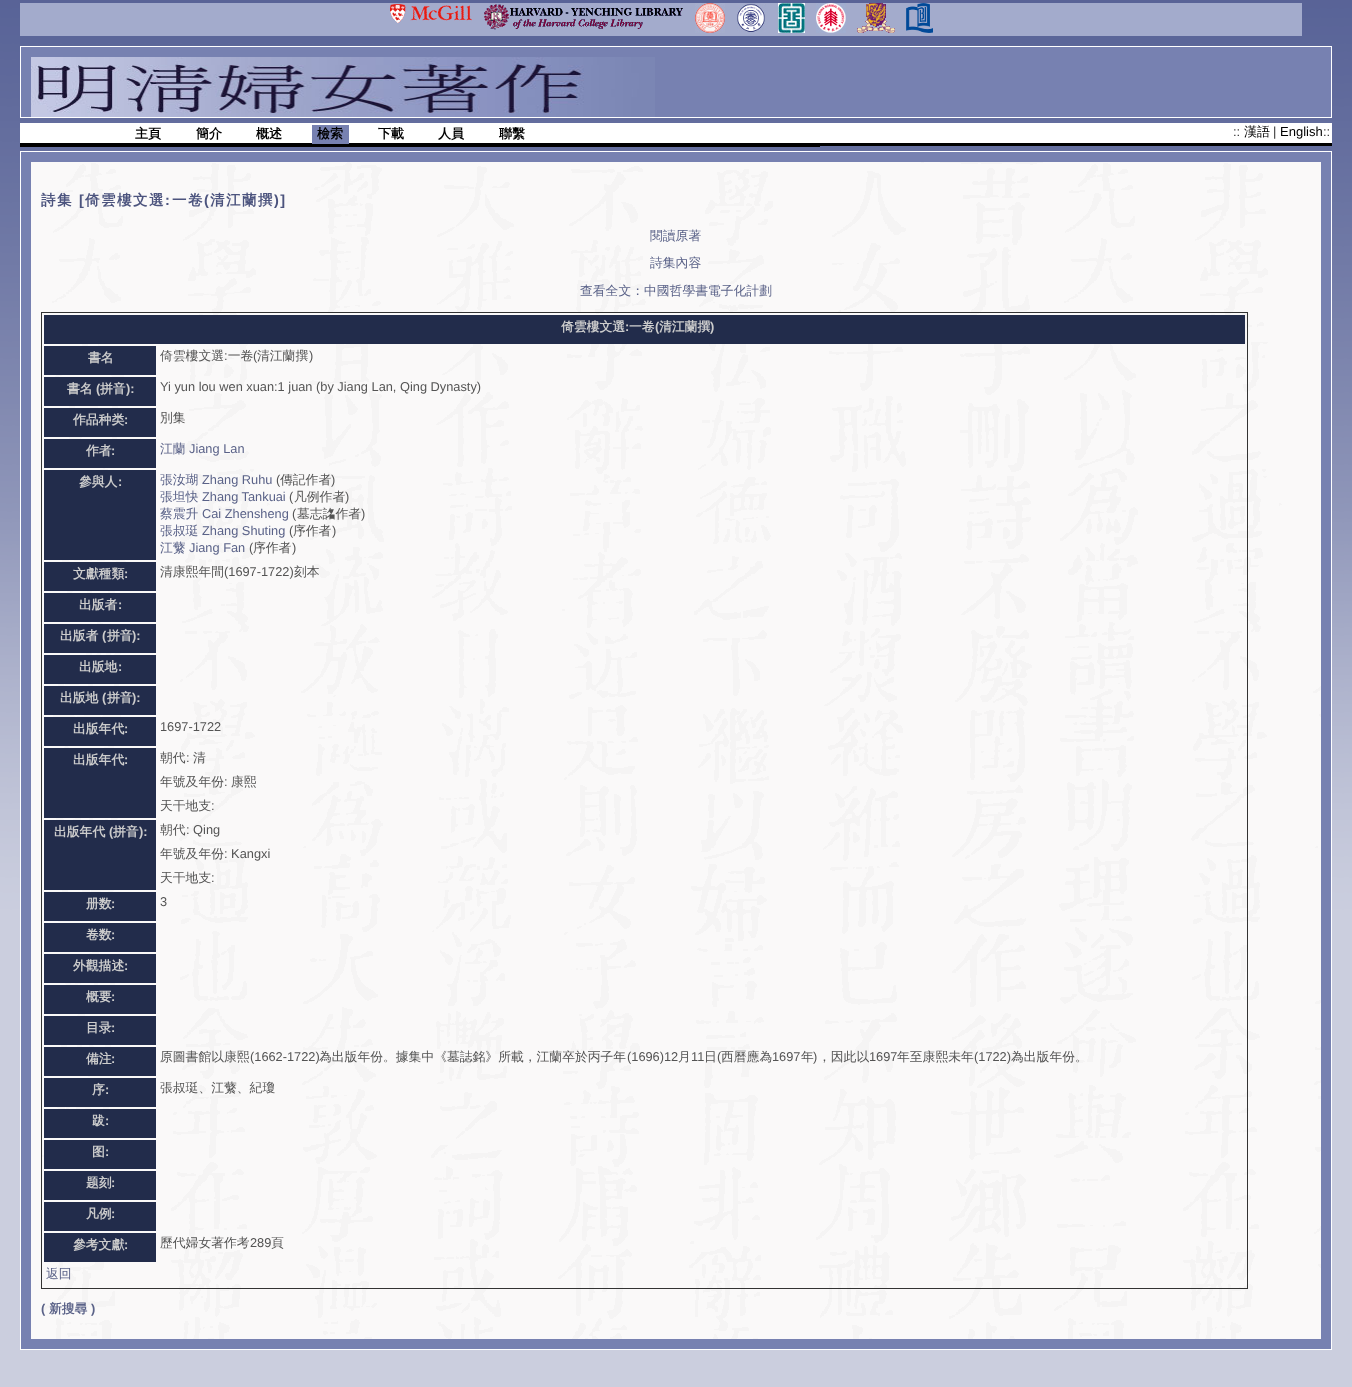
<svg xmlns="http://www.w3.org/2000/svg" xmlns:xlink="http://www.w3.org/1999/xlink" width="1352" height="1387" viewBox="0 0 1352 1387">
<style>
.cls-1{font:bold 13px WenQuanYi Zen Hei;fill:#000000}
.cls-2{font:13px Liberation Sans;fill:#333333}
.cls-3{font:500 13px WenQuanYi Zen Hei;fill:#000000}
.cls-4{font:13px Liberation Sans;fill:#000000}
.cls-5{font:bold 14.5px WenQuanYi Zen Hei;letter-spacing:1.5px;fill:#4c547e}
.cls-6{font:bold 14.5px Liberation Sans;letter-spacing:1.5px;fill:#4c547e}
.cls-7{font:500 12.8px WenQuanYi Zen Hei;fill:#5a6288}
.cls-8{font:bold 12.8px WenQuanYi Zen Hei;fill:#cccccc}
.cls-9{font:bold 12.8px Liberation Sans;fill:#cccccc}
.cls-10{font:500 12.8px WenQuanYi Zen Hei;fill:#545454}
.cls-11{font:12.8px Liberation Sans;fill:#545454}
.cls-12{font:12.8px Liberation Sans;fill:#5a6288}
.cls-13{font:bold 12.8px Liberation Sans;fill:#5a6288}
.cls-14{font:bold 12.8px WenQuanYi Zen Hei;fill:#5a6288}
</style>
<rect width="100%" height="100%" fill="#ffffff"/>
<image xlink:href="image0.png" x="0" y="0" width="1352" height="1387"/>
<rect fill="#a3abcc" x="20" y="3" width="1282" height="33"/>
<image xlink:href="image1.png" x="390" y="4" width="82" height="19"/>
<image xlink:href="image2.png" x="484" y="4" width="199" height="26"/>
<image xlink:href="image3.png" x="695" y="3" width="30" height="30"/>
<image xlink:href="image4.png" x="737" y="3" width="29" height="29"/>
<image xlink:href="image5.png" x="778" y="3" width="27" height="30"/>
<image xlink:href="image6.png" x="816" y="3" width="30" height="30"/>
<image xlink:href="image7.png" x="857" y="3" width="38" height="30"/>
<image xlink:href="image8.png" x="906" y="3" width="27" height="30"/>
<rect fill="#7781b1" stroke="#ffffff" x="20.5" y="46.5" width="1311" height="71"/>
<image xlink:href="image9.png" x="31" y="57" width="624" height="60"/>
<rect fill="#ffffff" x="20" y="123" width="1312" height="20"/>
<rect fill="#000000" x="20" y="143" width="1312" height="3"/>
<rect fill="#7781b1" x="312" y="125" width="37" height="19"/>
<rect fill="#020000" x="20" y="146" width="800" height="1"/>
<rect fill="#7781b1" stroke="#ffffff" x="20.5" y="151.5" width="1311" height="1198"/>
<image xlink:href="image10.png" x="31" y="162" width="1290" height="1177"/>
<rect fill="none" stroke="#333333" x="41.5" y="312.5" width="1206" height="976"/>
<rect fill="#222c4b" x="44" y="315" width="1201" height="29"/>
<rect fill="#222c4b" x="44" y="346" width="112" height="29"/>
<rect fill="#222c4b" x="44" y="377" width="112" height="29"/>
<rect fill="#222c4b" x="44" y="408" width="112" height="29"/>
<rect fill="#222c4b" x="44" y="439" width="112" height="29"/>
<rect fill="#222c4b" x="44" y="470" width="112" height="90"/>
<rect fill="#222c4b" x="44" y="562" width="112" height="29"/>
<rect fill="#222c4b" x="44" y="593" width="112" height="29"/>
<rect fill="#222c4b" x="44" y="624" width="112" height="29"/>
<rect fill="#222c4b" x="44" y="655" width="112" height="29"/>
<rect fill="#222c4b" x="44" y="686" width="112" height="29"/>
<rect fill="#222c4b" x="44" y="717" width="112" height="29"/>
<rect fill="#222c4b" x="44" y="748" width="112" height="70"/>
<rect fill="#222c4b" x="44" y="820" width="112" height="70"/>
<rect fill="#222c4b" x="44" y="892" width="112" height="29"/>
<rect fill="#222c4b" x="44" y="923" width="112" height="29"/>
<rect fill="#222c4b" x="44" y="954" width="112" height="29"/>
<rect fill="#222c4b" x="44" y="985" width="112" height="29"/>
<rect fill="#222c4b" x="44" y="1016" width="112" height="29"/>
<rect fill="#222c4b" x="44" y="1047" width="112" height="29"/>
<rect fill="#222c4b" x="44" y="1078" width="112" height="29"/>
<rect fill="#222c4b" x="44" y="1109" width="112" height="29"/>
<rect fill="#222c4b" x="44" y="1140" width="112" height="29"/>
<rect fill="#222c4b" x="44" y="1171" width="112" height="29"/>
<rect fill="#222c4b" x="44" y="1202" width="112" height="29"/>
<rect fill="#222c4b" x="44" y="1233" width="112" height="29"/>
<text class="cls-1" x="135" y="138">主頁</text>
<text class="cls-1" x="196" y="138">簡介</text>
<text class="cls-1" x="256" y="138">概述</text>
<text class="cls-1" x="317" y="138">檢索</text>
<text class="cls-1" x="378" y="138">下載</text>
<text class="cls-1" x="438" y="138">人員</text>
<text class="cls-1" x="499" y="138">聯繫</text>
<text class="cls-2" x="1233" y="136">::</text>
<text class="cls-3" x="1244" y="136">漢語</text>
<text class="cls-2" x="1273" y="136">|</text>
<text class="cls-4" x="1280" y="136">English</text>
<text class="cls-2" x="1323" y="136">::</text>
<text class="cls-5" x="41" y="205">詩集</text>
<text class="cls-6" x="79" y="205">[</text>
<text class="cls-5" x="85" y="205">倚雲樓文選</text>
<text class="cls-6" x="165" y="205">:</text>
<text class="cls-5" x="172" y="205">一卷</text>
<text class="cls-6" x="204" y="205">(</text>
<text class="cls-5" x="210" y="205">清江蘭撰</text>
<text class="cls-6" x="274" y="205">)]</text>
<text class="cls-7" x="650" y="240">閱讀原著</text>
<text class="cls-7" x="650" y="267">詩集內容</text>
<text class="cls-7" x="580" y="295">查看全文：中國哲學書電子化計劃</text>
<text class="cls-8" x="561" y="331">倚雲樓文選</text>
<text class="cls-9" x="625" y="331">:</text>
<text class="cls-8" x="629" y="331">一卷</text>
<text class="cls-9" x="655" y="331">(</text>
<text class="cls-8" x="659" y="331">清江蘭撰</text>
<text class="cls-9" x="710" y="331">)</text>
<text class="cls-8" x="88" y="362">書名</text>
<text class="cls-10" x="160" y="360">倚雲樓文選 一卷</text>
<text class="cls-11" x="253" y="360">(</text>
<text class="cls-10" x="257" y="360">清江蘭撰</text>
<text class="cls-11" x="309" y="360">)</text>
<text class="cls-11" x="224" y="360">:</text>
<text class="cls-8" x="67" y="393">書名</text>
<text class="cls-9" x="96" y="393">(</text>
<text class="cls-8" x="100" y="393">拼音</text>
<text class="cls-9" x="126" y="393">):</text>
<text class="cls-11" x="160" y="391">Yi yun lou wen xuan:1 juan (by Jiang Lan, Qing Dynasty)</text>
<text class="cls-8" x="73" y="424">作品种类</text>
<text class="cls-9" x="124" y="424">:</text>
<text class="cls-10" x="160" y="422">別集</text>
<text class="cls-8" x="86" y="455">作者</text>
<text class="cls-9" x="111" y="455">:</text>
<text class="cls-7" x="160" y="453">江蘭</text>
<text class="cls-12" x="189" y="453">Jiang Lan</text>
<text class="cls-8" x="79" y="486">參與人</text>
<text class="cls-9" x="118" y="486">:</text>
<text class="cls-7" x="160" y="484">張汝瑚</text>
<text class="cls-12" x="202" y="484">Zhang Ruhu</text>
<text class="cls-11" x="276" y="484">(</text>
<text class="cls-10" x="280" y="484">傳記作者</text>
<text class="cls-11" x="331" y="484">)</text>
<text class="cls-7" x="160" y="501">張坦快</text>
<text class="cls-12" x="202" y="501">Zhang Tankuai</text>
<text class="cls-11" x="289" y="501">(</text>
<text class="cls-10" x="294" y="501">凡例作者</text>
<text class="cls-11" x="345" y="501">)</text>
<text class="cls-7" x="160" y="518">蔡震升</text>
<text class="cls-12" x="202" y="518">Cai Zhensheng</text>
<text class="cls-11" x="292" y="518">(</text>
<text class="cls-10" x="297" y="518">墓志詺作者</text>
<text class="cls-11" x="361" y="518">)</text>
<text class="cls-7" x="160" y="535">張叔珽</text>
<text class="cls-12" x="202" y="535">Zhang Shuting</text>
<text class="cls-11" x="289" y="535">(</text>
<text class="cls-10" x="293" y="535">序作者</text>
<text class="cls-11" x="332" y="535">)</text>
<text class="cls-7" x="160" y="552">江蘩</text>
<text class="cls-12" x="189" y="552">Jiang Fan</text>
<text class="cls-11" x="249" y="552">(</text>
<text class="cls-10" x="253" y="552">序作者</text>
<text class="cls-11" x="292" y="552">)</text>
<text class="cls-8" x="73" y="578">文獻種類</text>
<text class="cls-9" x="124" y="578">:</text>
<text class="cls-10" x="160" y="576">清康熙年間</text>
<text class="cls-11" x="224" y="576">(1697-1722)</text>
<text class="cls-10" x="294" y="576">刻本</text>
<text class="cls-8" x="79" y="609">出版者</text>
<text class="cls-9" x="118" y="609">:</text>
<text class="cls-8" x="60" y="640">出版者</text>
<text class="cls-9" x="102" y="640">(</text>
<text class="cls-8" x="107" y="640">拼音</text>
<text class="cls-9" x="132" y="640">):</text>
<text class="cls-8" x="79" y="671">出版地</text>
<text class="cls-9" x="118" y="671">:</text>
<text class="cls-8" x="60" y="702">出版地</text>
<text class="cls-9" x="102" y="702">(</text>
<text class="cls-8" x="107" y="702">拼音</text>
<text class="cls-9" x="132" y="702">):</text>
<text class="cls-8" x="73" y="733">出版年代</text>
<text class="cls-9" x="124" y="733">:</text>
<text class="cls-11" x="160" y="731">1697-1722</text>
<text class="cls-8" x="73" y="764">出版年代</text>
<text class="cls-9" x="124" y="764">:</text>
<text class="cls-10" x="160" y="762">朝代</text>
<text class="cls-11" x="186" y="762">:</text>
<text class="cls-10" x="193" y="762">清</text>
<text class="cls-10" x="160" y="786">年號及年份</text>
<text class="cls-11" x="224" y="786">:</text>
<text class="cls-10" x="231" y="786">康熙</text>
<text class="cls-10" x="160" y="810">天干地支</text>
<text class="cls-11" x="211" y="810">:</text>
<text class="cls-8" x="54" y="836">出版年代</text>
<text class="cls-9" x="109" y="836">(</text>
<text class="cls-8" x="113" y="836">拼音</text>
<text class="cls-9" x="139" y="836">):</text>
<text class="cls-10" x="160" y="834">朝代</text>
<text class="cls-11" x="186" y="834">: Qing</text>
<text class="cls-10" x="160" y="858">年號及年份</text>
<text class="cls-11" x="224" y="858">: Kangxi</text>
<text class="cls-10" x="160" y="882">天干地支</text>
<text class="cls-11" x="211" y="882">:</text>
<text class="cls-8" x="86" y="908">册数</text>
<text class="cls-9" x="111" y="908">:</text>
<text class="cls-11" x="160" y="906">3</text>
<text class="cls-8" x="86" y="939">卷数</text>
<text class="cls-9" x="111" y="939">:</text>
<text class="cls-8" x="73" y="970">外觀描述</text>
<text class="cls-9" x="124" y="970">:</text>
<text class="cls-8" x="86" y="1001">概要</text>
<text class="cls-9" x="111" y="1001">:</text>
<text class="cls-8" x="86" y="1032">目录</text>
<text class="cls-9" x="111" y="1032">:</text>
<text class="cls-8" x="86" y="1063">備注</text>
<text class="cls-9" x="111" y="1063">:</text>
<text class="cls-10" x="160" y="1061">原圖書館以康熙</text>
<text class="cls-11" x="250" y="1061">(1662-1722)</text>
<text class="cls-10" x="319" y="1061">為出版年份。據集中《墓誌銘》所載，江蘭卒於丙子年</text>
<text class="cls-11" x="627" y="1061">(1696)12</text>
<text class="cls-10" x="678" y="1061">月</text>
<text class="cls-11" x="691" y="1061">11</text>
<text class="cls-10" x="704" y="1061">日</text>
<text class="cls-11" x="717" y="1061">(</text>
<text class="cls-10" x="721" y="1061">西曆應為</text>
<text class="cls-11" x="772" y="1061">1697</text>
<text class="cls-10" x="801" y="1061">年</text>
<text class="cls-11" x="813" y="1061">)</text>
<text class="cls-10" x="818" y="1061">，因此以</text>
<text class="cls-11" x="869" y="1061">1697</text>
<text class="cls-10" x="897" y="1061">年至康熙未年</text>
<text class="cls-11" x="974" y="1061">(1722)</text>
<text class="cls-10" x="1011" y="1061">為出版年份。</text>
<text class="cls-8" x="92" y="1094">序</text>
<text class="cls-9" x="105" y="1094">:</text>
<text class="cls-10" x="160" y="1092">張叔珽、江蘩、紀瓊</text>
<text class="cls-8" x="92" y="1125">跋</text>
<text class="cls-9" x="105" y="1125">:</text>
<text class="cls-8" x="92" y="1156">图</text>
<text class="cls-9" x="105" y="1156">:</text>
<text class="cls-8" x="86" y="1187">题刻</text>
<text class="cls-9" x="111" y="1187">:</text>
<text class="cls-8" x="86" y="1218">凡例</text>
<text class="cls-9" x="111" y="1218">:</text>
<text class="cls-8" x="73" y="1249">參考文獻</text>
<text class="cls-9" x="124" y="1249">:</text>
<text class="cls-10" x="160" y="1247">歷代婦女著作考</text>
<text class="cls-11" x="250" y="1247">289</text>
<text class="cls-10" x="271" y="1247">頁</text>
<text class="cls-7" x="46" y="1278">返回</text>
<text class="cls-13" x="41" y="1313">(</text>
<text class="cls-14" x="49" y="1313">新搜尋</text>
<text class="cls-13" x="91" y="1313">)</text>
</svg>
